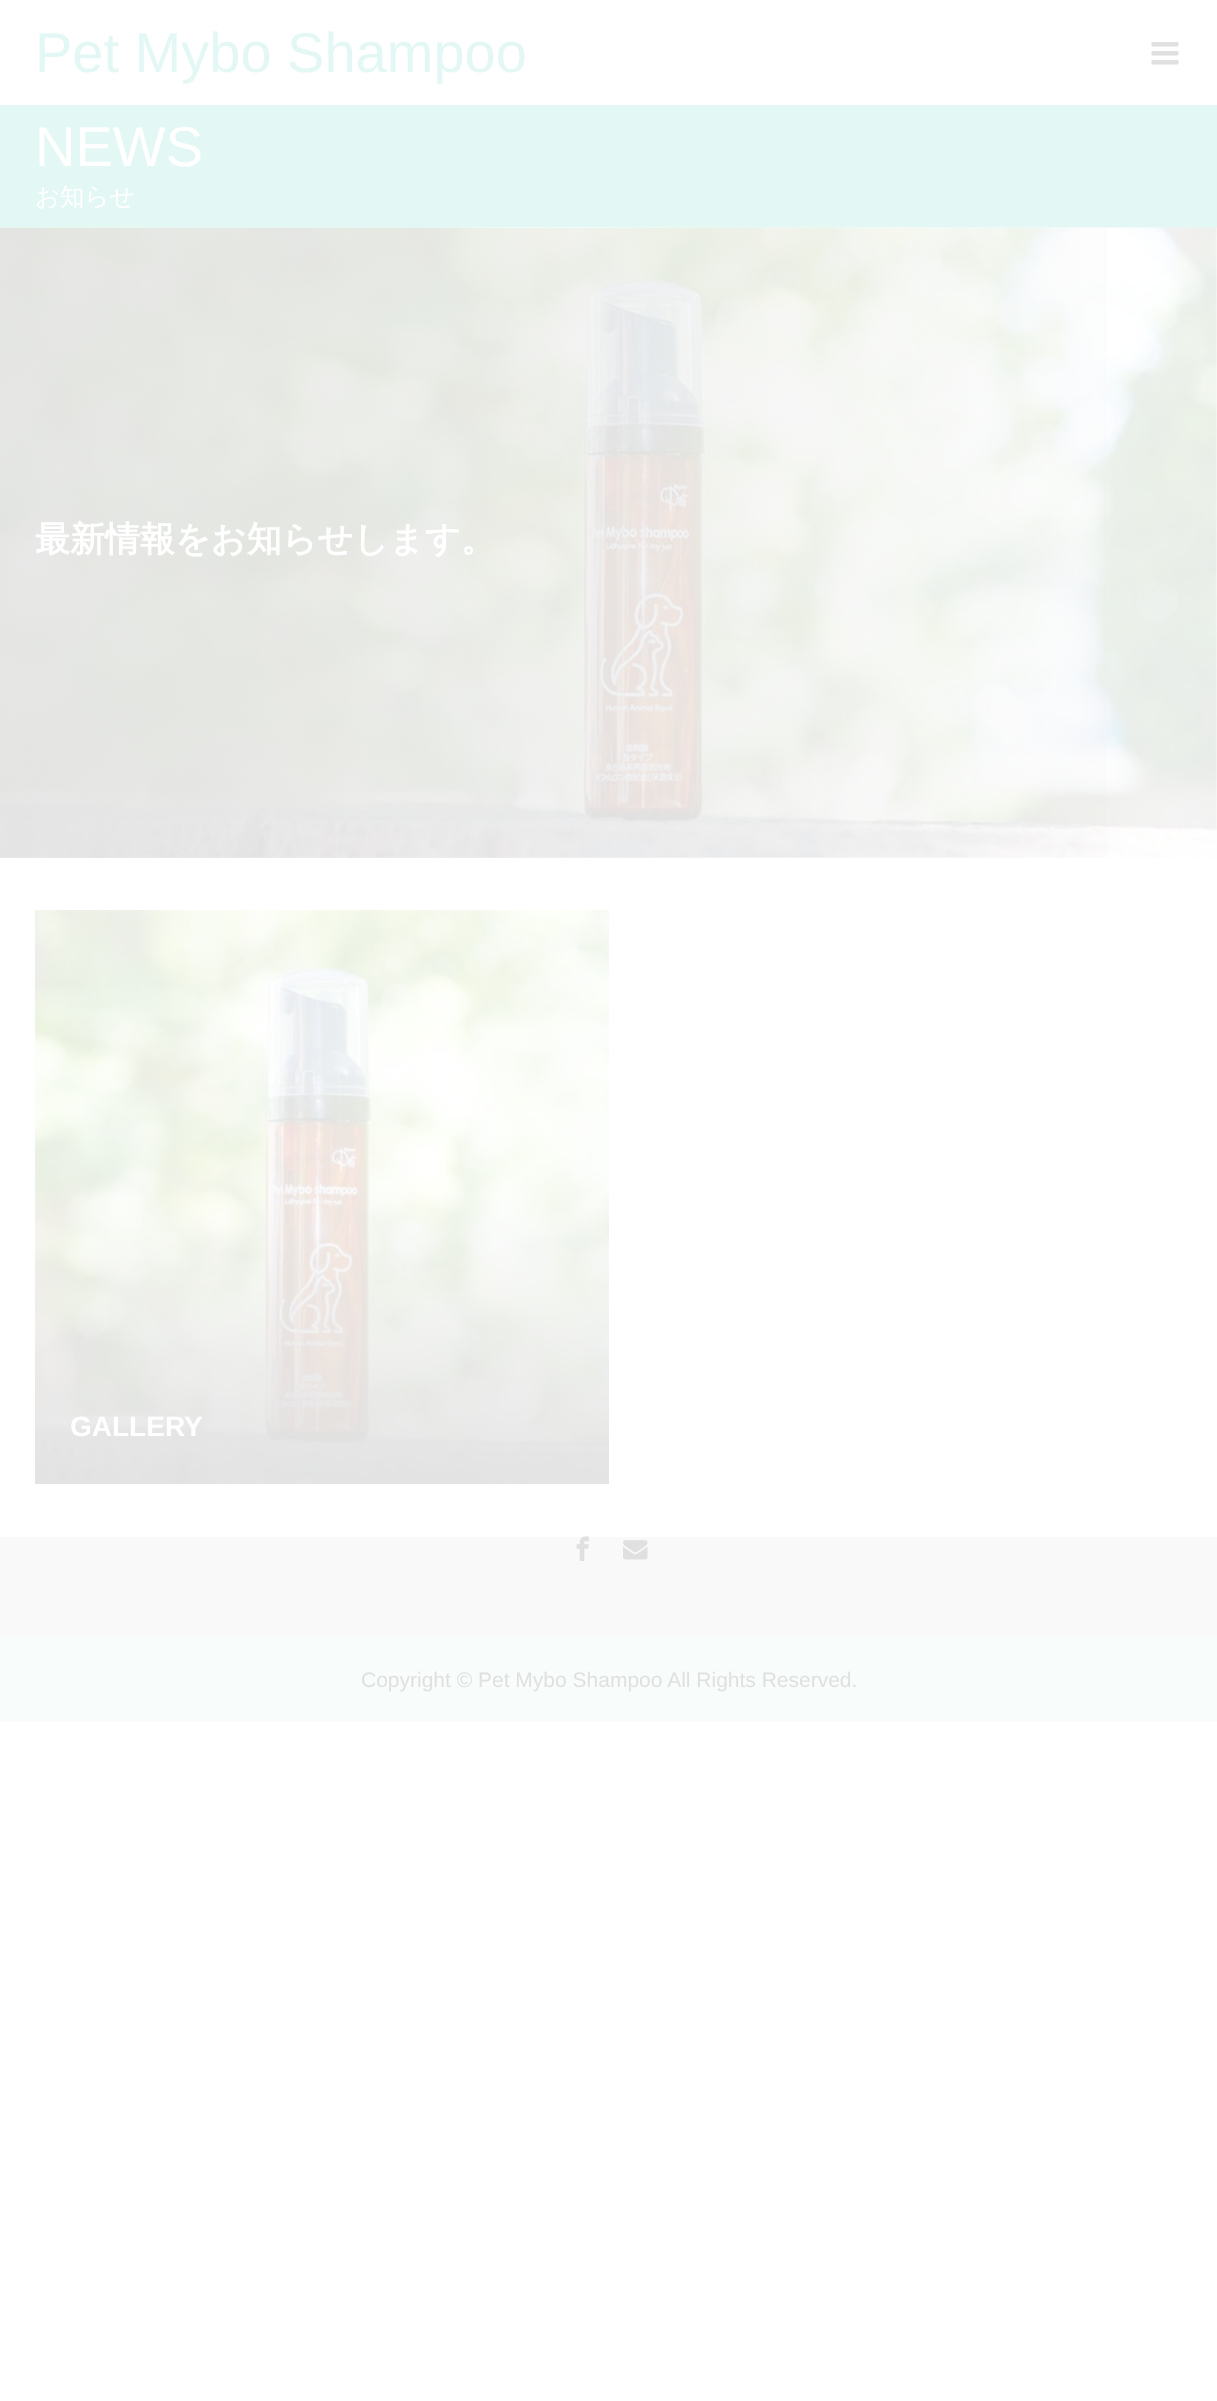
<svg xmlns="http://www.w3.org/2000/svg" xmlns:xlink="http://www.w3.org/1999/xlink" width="1217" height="2401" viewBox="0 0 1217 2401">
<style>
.cls-1{font:56px Liberation Sans;fill:#e3f8f5}
.cls-2{font:56px Liberation Sans;fill:#ffffff}
.cls-3{font:500 24.5px WenQuanYi Zen Hei;fill:#ffffff}
.cls-4{font:bold 35px WenQuanYi Zen Hei;fill:#ffffff}
.cls-5{font:bold 28px Liberation Sans;fill:#ffffff}
.cls-6{font:21px Liberation Sans;fill:#e0e0e0}
</style>
<defs>
<linearGradient id="g1" gradientUnits="userSpaceOnUse" x1="0" y1="543" x2="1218" y2="543"><stop offset="0" stop-color="#e0e0e0" stop-opacity="0.75"/><stop offset="1" stop-color="#e0e0e0" stop-opacity="0"/></linearGradient>
</defs>
<rect width="100%" height="100%" fill="#ffffff"/>
<image xlink:href="image0.png" x="1151" y="42" width="28" height="23"/>
<rect fill="#e3f8f5" x="0" y="105" width="1217" height="123"/>
<image xlink:href="image1.png" x="0" y="227" width="1217" height="631"/>
<rect fill="url(#g1)" x="0" y="228" width="1107" height="630"/>
<image xlink:href="image2.png" x="35" y="910" width="574" height="574"/>
<rect fill="#f9f9f9" x="0" y="1537" width="1217" height="98"/>
<image xlink:href="image3.png" x="576" y="1536" width="13" height="25"/>
<image xlink:href="image4.png" x="623" y="1540" width="25" height="20"/>
<rect fill="#f8fcfa" x="0" y="1637" width="1217" height="85"/>
<rect fill="#fbfbfb" x="0" y="1635" width="1217" height="2"/>
<text class="cls-1" x="35" y="72">Pet Mybo Shampoo</text>
<text class="cls-2" x="35" y="166">NEWS</text>
<text class="cls-3" x="35" y="205">お知らせ</text>
<text class="cls-4" x="35" y="551">最新情報をお知らせします。</text>
<text class="cls-5" x="70" y="1436">GALLERY</text>
<text class="cls-6" x="361" y="1687">Copyright © Pet Mybo Shampoo All Rights Reserved.</text>
</svg>
